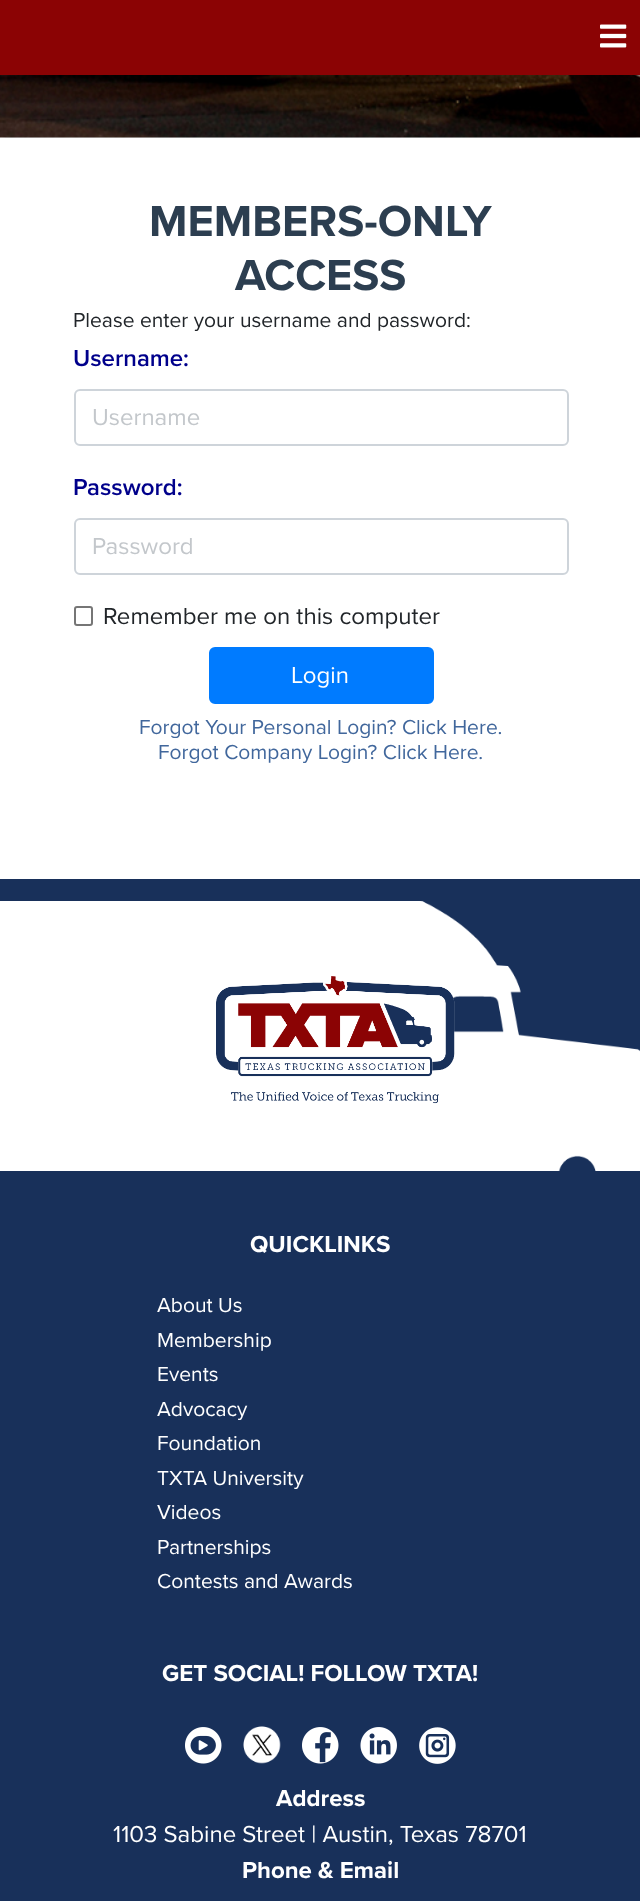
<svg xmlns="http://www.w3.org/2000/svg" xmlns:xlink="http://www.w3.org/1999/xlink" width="640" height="1901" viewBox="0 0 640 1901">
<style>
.cls-1{font:bold 45px Proxima Nova;fill:#2c3e50}
.cls-2{font:21px Proxima Nova;fill:#212529}
.cls-3{font:600 24px Proxima Nova;fill:#00008b}
.cls-4{font:24px Proxima Nova;fill:#c3c7cb}
.cls-5{font:24px Proxima Nova;fill:#212529}
.cls-6{font:24px Proxima Nova;fill:#ffffff}
.cls-7{font:21px Proxima Nova;fill:#41679c}
.cls-8{font:bold 24px Proxima Nova;fill:#ffffff}
.cls-9{font:21px Proxima Nova;fill:#ffffff}
</style>
<rect width="100%" height="100%" fill="#ffffff"/>
<rect fill="#e9ecef" x="0" y="-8" width="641" height="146" rx="8"/>
<image xlink:href="image0.png" x="0" y="75" width="640" height="63"/>
<rect fill="#8b0304" x="0" y="0" width="640" height="75"/>
<image xlink:href="image1.png" x="600" y="24" width="27" height="24"/>
<rect fill="none" stroke="#ced4da" stroke-width="2" x="75" y="390" width="493" height="55" rx="5"/>
<rect fill="none" stroke="#ced4da" stroke-width="2" x="75" y="519" width="493" height="55" rx="5"/>
<rect fill="none" stroke="#767676" stroke-width="2" x="75" y="607" width="17" height="18" rx="2"/>
<rect fill="#007bff" stroke="#007bff" stroke-width="2" x="210" y="648" width="223" height="55" rx="5"/>
<rect fill="#18305a" x="0" y="879" width="640" height="1022"/>
<image xlink:href="image2.png" x="0" y="901" width="640" height="270"/>
<image xlink:href="image3.png" x="216" y="976" width="239" height="128"/>
<image xlink:href="image4.png" x="185" y="1727" width="37" height="37"/>
<image xlink:href="image5.png" x="243" y="1726" width="38" height="38"/>
<image xlink:href="image6.png" x="302" y="1727" width="37" height="37"/>
<image xlink:href="image7.png" x="360" y="1727" width="37" height="37"/>
<image xlink:href="image8.png" x="419" y="1727" width="37" height="37"/>
<text class="cls-1" x="149" y="236">MEMBERS-ONLY</text>
<text class="cls-1" x="235" y="290">ACCESS</text>
<text class="cls-2" x="73" y="327">Please enter your username and password:</text>
<text class="cls-3" x="73" y="366">Username:</text>
<text class="cls-4" x="92" y="425">Username</text>
<text class="cls-3" x="73" y="495">Password:</text>
<text class="cls-4" x="92" y="554">Password</text>
<text class="cls-5" x="103" y="624">Remember me on this computer</text>
<text class="cls-6" x="291" y="683">Login</text>
<text class="cls-7" x="139" y="734">Forgot Your Personal Login? Click Here.</text>
<text class="cls-7" x="158" y="759">Forgot Company Login? Click Here.</text>
<text class="cls-8" x="250" y="1252">QUICKLINKS</text>
<text class="cls-9"><tspan x="157" y="1312">About Us</tspan><tspan x="157" y="1347">Membership</tspan><tspan x="157" y="1381">Events</tspan><tspan x="157" y="1416">Advocacy</tspan><tspan x="157" y="1450">Foundation</tspan><tspan x="157" y="1485">TXTA University</tspan><tspan x="157" y="1519">Videos</tspan><tspan x="157" y="1554">Partnerships</tspan><tspan x="157" y="1588">Contests and Awards</tspan></text>
<text class="cls-8" x="162" y="1681">GET SOCIAL! FOLLOW TXTA!</text>
<text class="cls-8" x="276" y="1806">Address</text>
<text class="cls-6" x="113" y="1842">1103 Sabine Street | Austin, Texas 78701</text>
<text class="cls-8" x="242" y="1878">Phone &amp; Email</text>
</svg>
